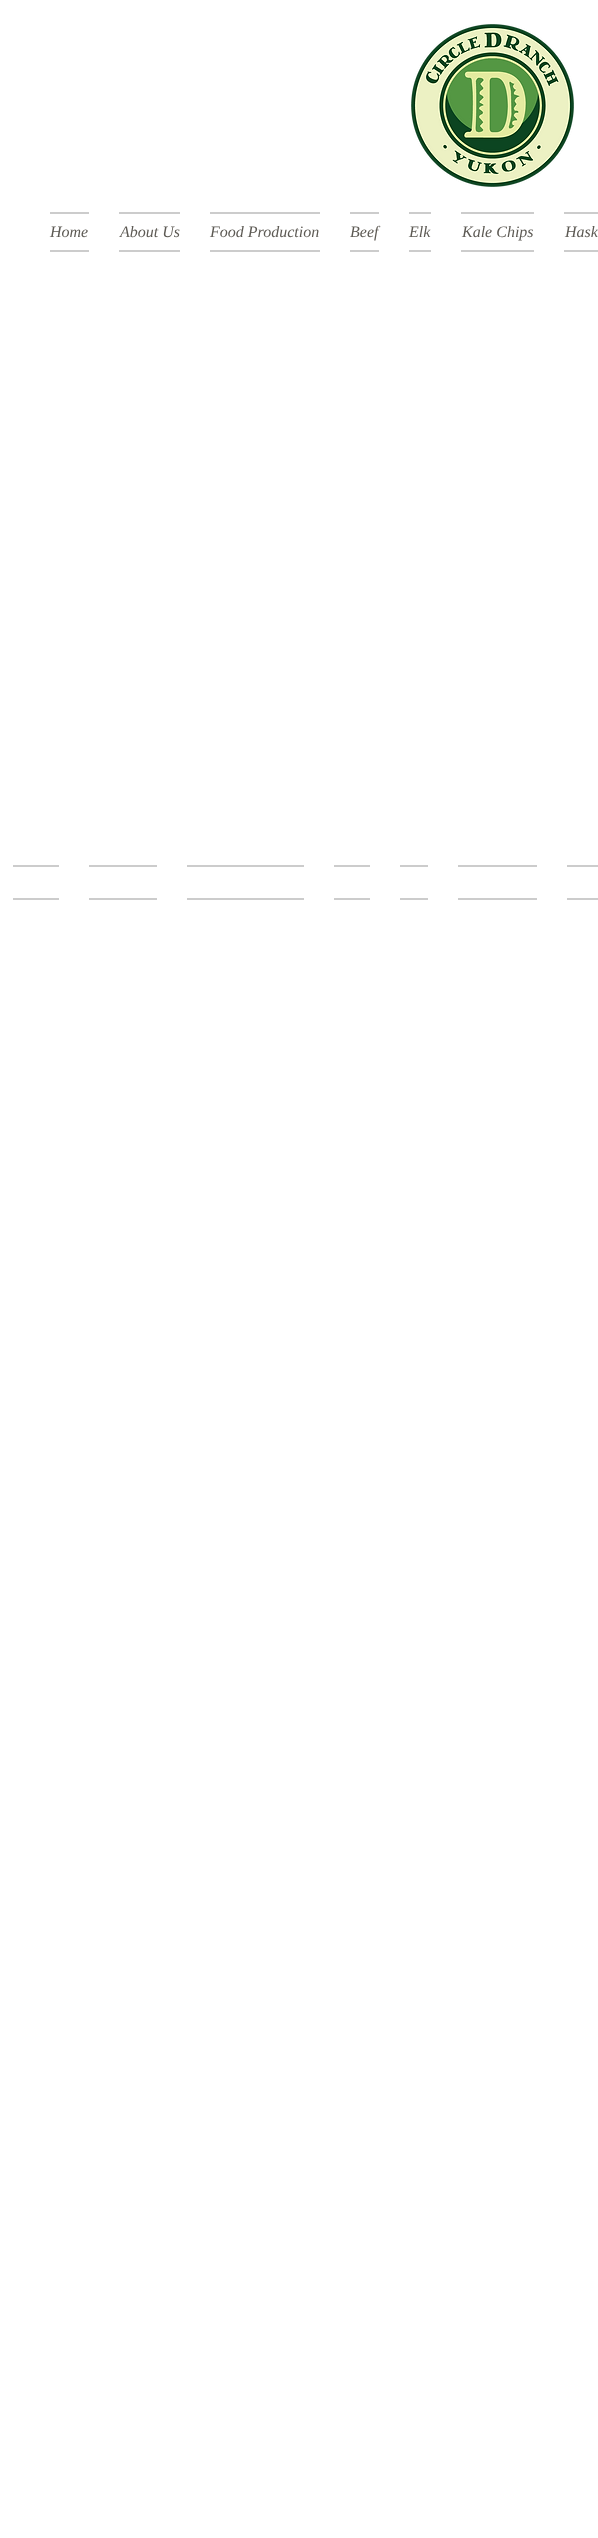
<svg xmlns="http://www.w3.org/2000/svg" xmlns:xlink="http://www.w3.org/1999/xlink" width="598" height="2538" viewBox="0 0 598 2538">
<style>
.cls-1{font:italic 16px Liberation Serif;fill:#5d5a54}
</style>
<rect width="100%" height="100%" fill="#ffffff"/>
<image xlink:href="image0.png" x="411" y="24" width="163" height="163"/>
<rect fill="#cccccc" x="50" y="212" width="39" height="2"/>
<rect fill="#cccccc" x="50" y="250" width="39" height="2"/>
<rect fill="#cccccc" x="119" y="212" width="61" height="2"/>
<rect fill="#cccccc" x="119" y="250" width="61" height="2"/>
<rect fill="#cccccc" x="210" y="212" width="110" height="2"/>
<rect fill="#cccccc" x="210" y="250" width="110" height="2"/>
<rect fill="#cccccc" x="350" y="212" width="29" height="2"/>
<rect fill="#cccccc" x="350" y="250" width="29" height="2"/>
<rect fill="#cccccc" x="409" y="212" width="22" height="2"/>
<rect fill="#cccccc" x="409" y="250" width="22" height="2"/>
<rect fill="#cccccc" x="461" y="212" width="73" height="2"/>
<rect fill="#cccccc" x="461" y="250" width="73" height="2"/>
<rect fill="#cccccc" x="564" y="212" width="34" height="2"/>
<rect fill="#cccccc" x="564" y="250" width="34" height="2"/>
<rect fill="#cccccc" x="13" y="865" width="46" height="2"/>
<rect fill="#cccccc" x="13" y="898" width="46" height="2"/>
<rect fill="#cccccc" x="89" y="865" width="68" height="2"/>
<rect fill="#cccccc" x="89" y="898" width="68" height="2"/>
<rect fill="#cccccc" x="187" y="865" width="117" height="2"/>
<rect fill="#cccccc" x="187" y="898" width="117" height="2"/>
<rect fill="#cccccc" x="334" y="865" width="36" height="2"/>
<rect fill="#cccccc" x="334" y="898" width="36" height="2"/>
<rect fill="#cccccc" x="400" y="865" width="28" height="2"/>
<rect fill="#cccccc" x="400" y="898" width="28" height="2"/>
<rect fill="#cccccc" x="458" y="865" width="79" height="2"/>
<rect fill="#cccccc" x="458" y="898" width="79" height="2"/>
<rect fill="#cccccc" x="567" y="865" width="31" height="2"/>
<rect fill="#cccccc" x="567" y="898" width="31" height="2"/>
<text class="cls-1" x="50" y="237">Home</text>
<text class="cls-1" x="120" y="237">About Us</text>
<text class="cls-1" x="210" y="237">Food Production</text>
<text class="cls-1" x="350" y="237">Beef</text>
<text class="cls-1" x="409" y="237">Elk</text>
<text class="cls-1" x="462" y="237">Kale Chips</text>
<text class="cls-1" x="565" y="237">Hask</text>
</svg>
